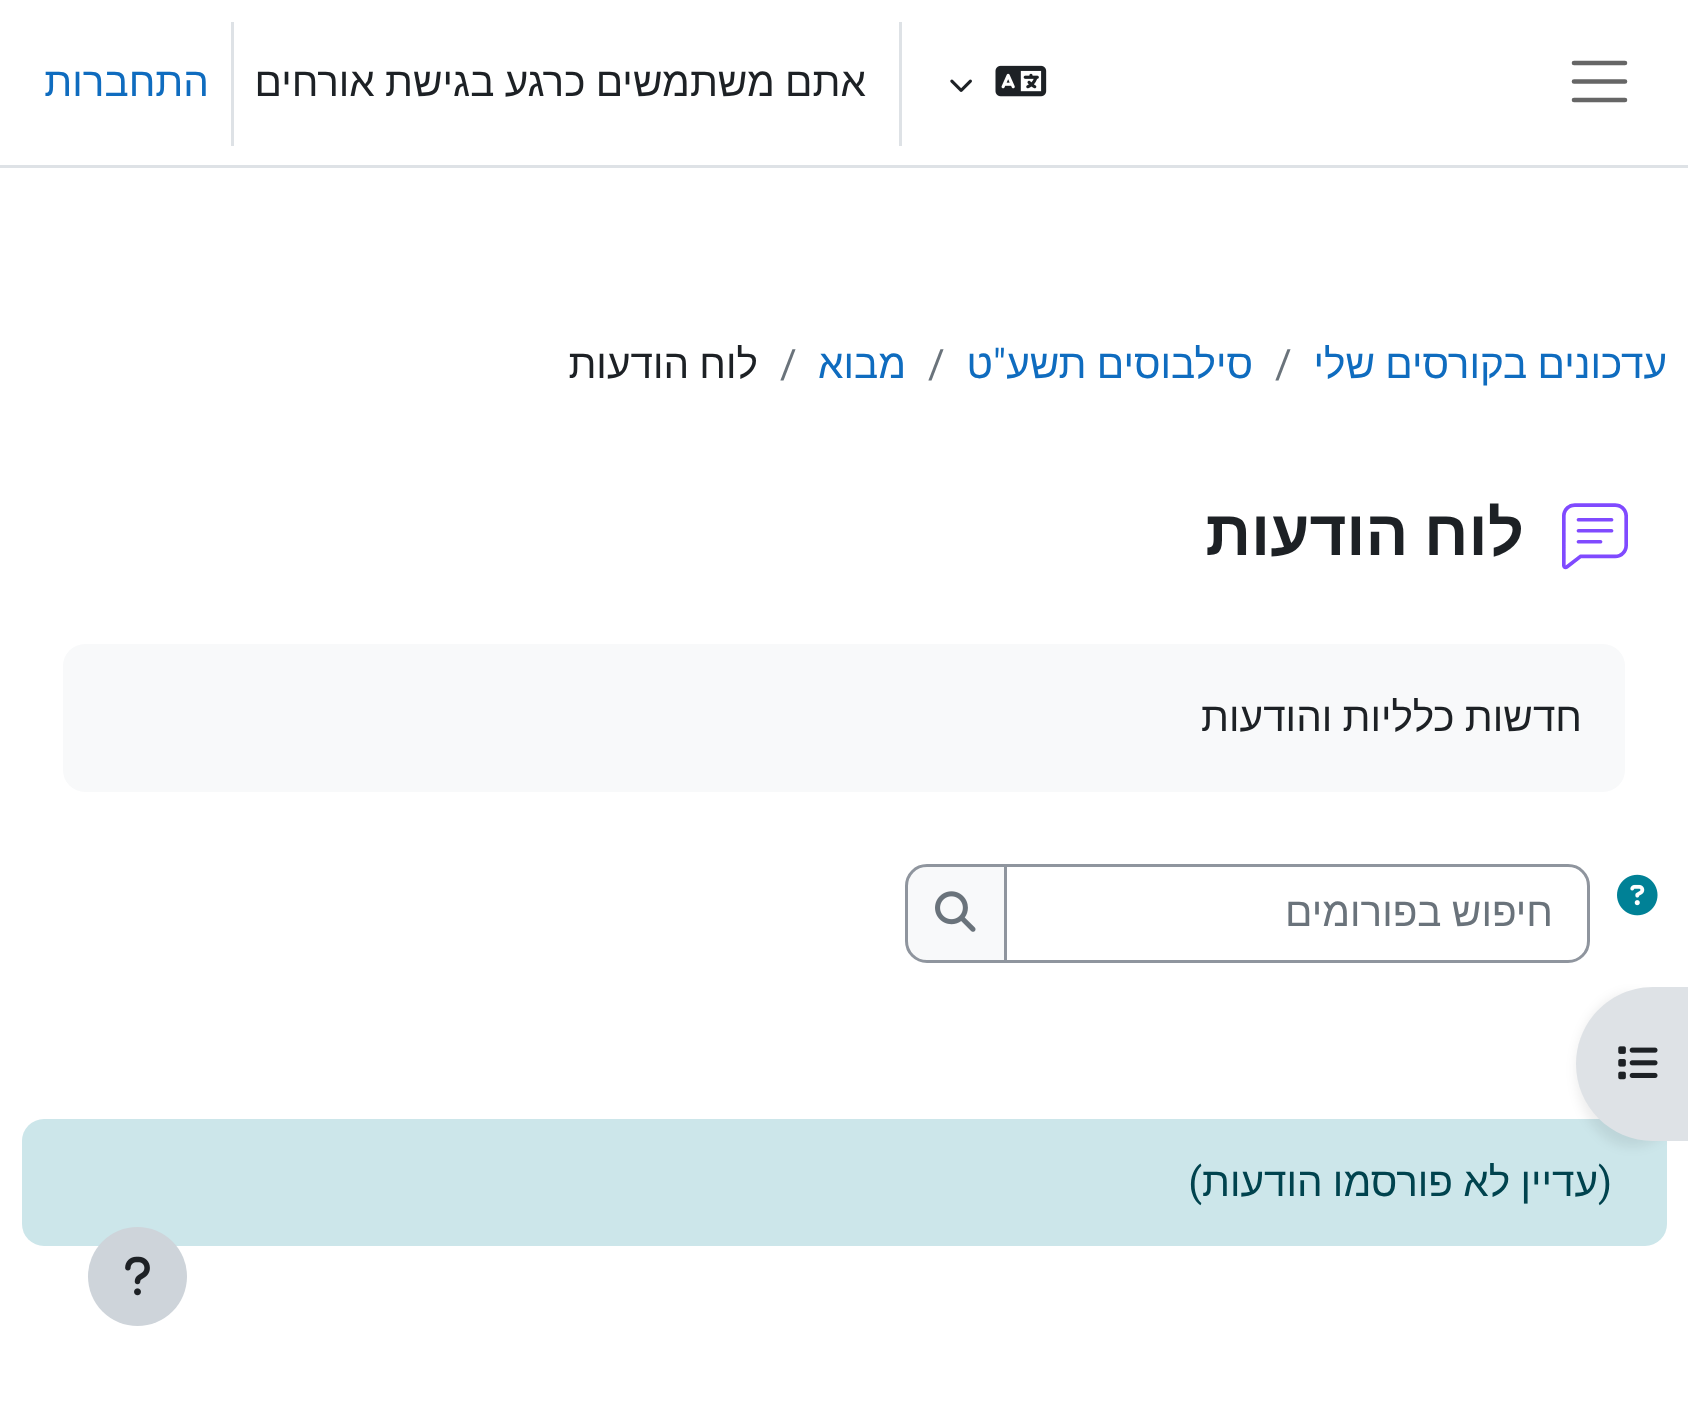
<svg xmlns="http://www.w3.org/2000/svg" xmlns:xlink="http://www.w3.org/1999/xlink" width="1688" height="1411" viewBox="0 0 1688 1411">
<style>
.cls-1{font:40.5px Liberation Sans;direction:rtl;fill:#1d2125}
.cls-2{font:40.5px Liberation Sans;direction:rtl;fill:#0f6cbf}
.cls-3{font:40.5px Roboto;fill:#6a737b}
.cls-4{font:40.5px Roboto;direction:rtl;fill:#0f6cbf}
.cls-5{font:bold 63.5px Liberation Sans;direction:rtl;fill:#1d2125}
.cls-6{font:40.5px Liberation Sans;direction:rtl;fill:#6a737b}
.cls-7{font:40.5px Roboto;direction:rtl;fill:#00434e}
.cls-8{font:40.5px Liberation Sans;direction:rtl;fill:#00434e}
</style>
<rect width="100%" height="100%" fill="#ffffff"/>
<rect fill="#dee2e6" x="0" y="165" width="1688" height="3"/>
<path fill="none" stroke="#666666" stroke-width="4.6" stroke-linecap="round" d="M1574 63H1625M1574 81.5H1625M1574 100H1625"/>
<image xlink:href="image0.png" x="995" y="65" width="52" height="32"/>
<image xlink:href="image1.png" x="950" y="79" width="22" height="13"/>
<rect fill="#dee2e6" x="899" y="22" width="3" height="124"/>
<rect fill="#dee2e6" x="231" y="22" width="3" height="124"/>
<image xlink:href="image2.png" x="1562" y="503" width="66" height="67"/>
<rect fill="#cce6ea" x="22" y="1119" width="1645" height="127" rx="22"/>
<rect fill="#000000" fill-opacity="0.07" filter="blur(5.5px)" x="1576" y="993" width="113" height="154" rx="77"/>
<path fill="#dee2e6" d="M1653 987H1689V1141H1653C1610.5 1141 1576 1106.5 1576 1064C1576 1021.5 1610.5 987 1653 987Z"/>
<image xlink:href="image3.png" x="1618" y="1046" width="40" height="34"/>
<rect fill="#f8f9fa" x="63" y="644" width="1562" height="148" rx="22"/>
<image xlink:href="image4.png" x="1617" y="874" width="41" height="42"/>
<path fill="none" stroke="#8f959e" stroke-width="3" d="M1005.5 865.5H1568C1579.5 865.5 1588.5 874.5 1588.5 886V941C1588.5 952.5 1579.5 961.5 1568 961.5H1005.5Z"/>
<path fill="#f8f9fa" stroke="#8f959e" stroke-width="3" d="M927 865.5H1005.5V961.5H927C915.5 961.5 906.5 952.5 906.5 941V886C906.5 874.5 915.5 865.5 927 865.5Z"/>
<image xlink:href="image5.png" x="935" y="891" width="41" height="41"/>
<circle fill="#ced4da" cx="137.5" cy="1276.5" r="49.5"/>
<image xlink:href="image6.png" x="125" y="1256" width="25" height="40"/>
<text class="cls-1" x="866" y="96" word-spacing="-1">אתם משתמשים כרגע בגישת אורחים</text>
<text class="cls-2" x="209" y="96">התחברות</text>
<text class="cls-2" x="1667" y="378" word-spacing="-1">עדכונים בקורסים שלי</text>
<text class="cls-3" x="1275" y="378">/</text>
<text class="cls-2" x="1253" y="378" word-spacing="-1">סילבוסים תשע</text>
<text class="cls-4" x="1006" y="378">"</text>
<text class="cls-2" x="993" y="378">ט</text>
<text class="cls-3" x="928" y="378">/</text>
<text class="cls-2" x="906" y="378">מבוא</text>
<text class="cls-3" x="780" y="378">/</text>
<text class="cls-1" x="758" y="378" word-spacing="-1">לוח הודעות</text>
<text class="cls-5" x="1524" y="555" word-spacing="-2">לוח הודעות</text>
<text class="cls-1" x="1582" y="731" word-spacing="-1">חדשות כלליות והודעות</text>
<text class="cls-6" x="1553" y="926" word-spacing="-1">חיפוש בפורומים</text>
<text class="cls-7" x="1612" y="1196">(</text>
<text class="cls-8" x="1598" y="1196" word-spacing="-1">עדיין לא פורסמו הודעות</text>
<text class="cls-7" x="1202" y="1196">)</text>
</svg>
